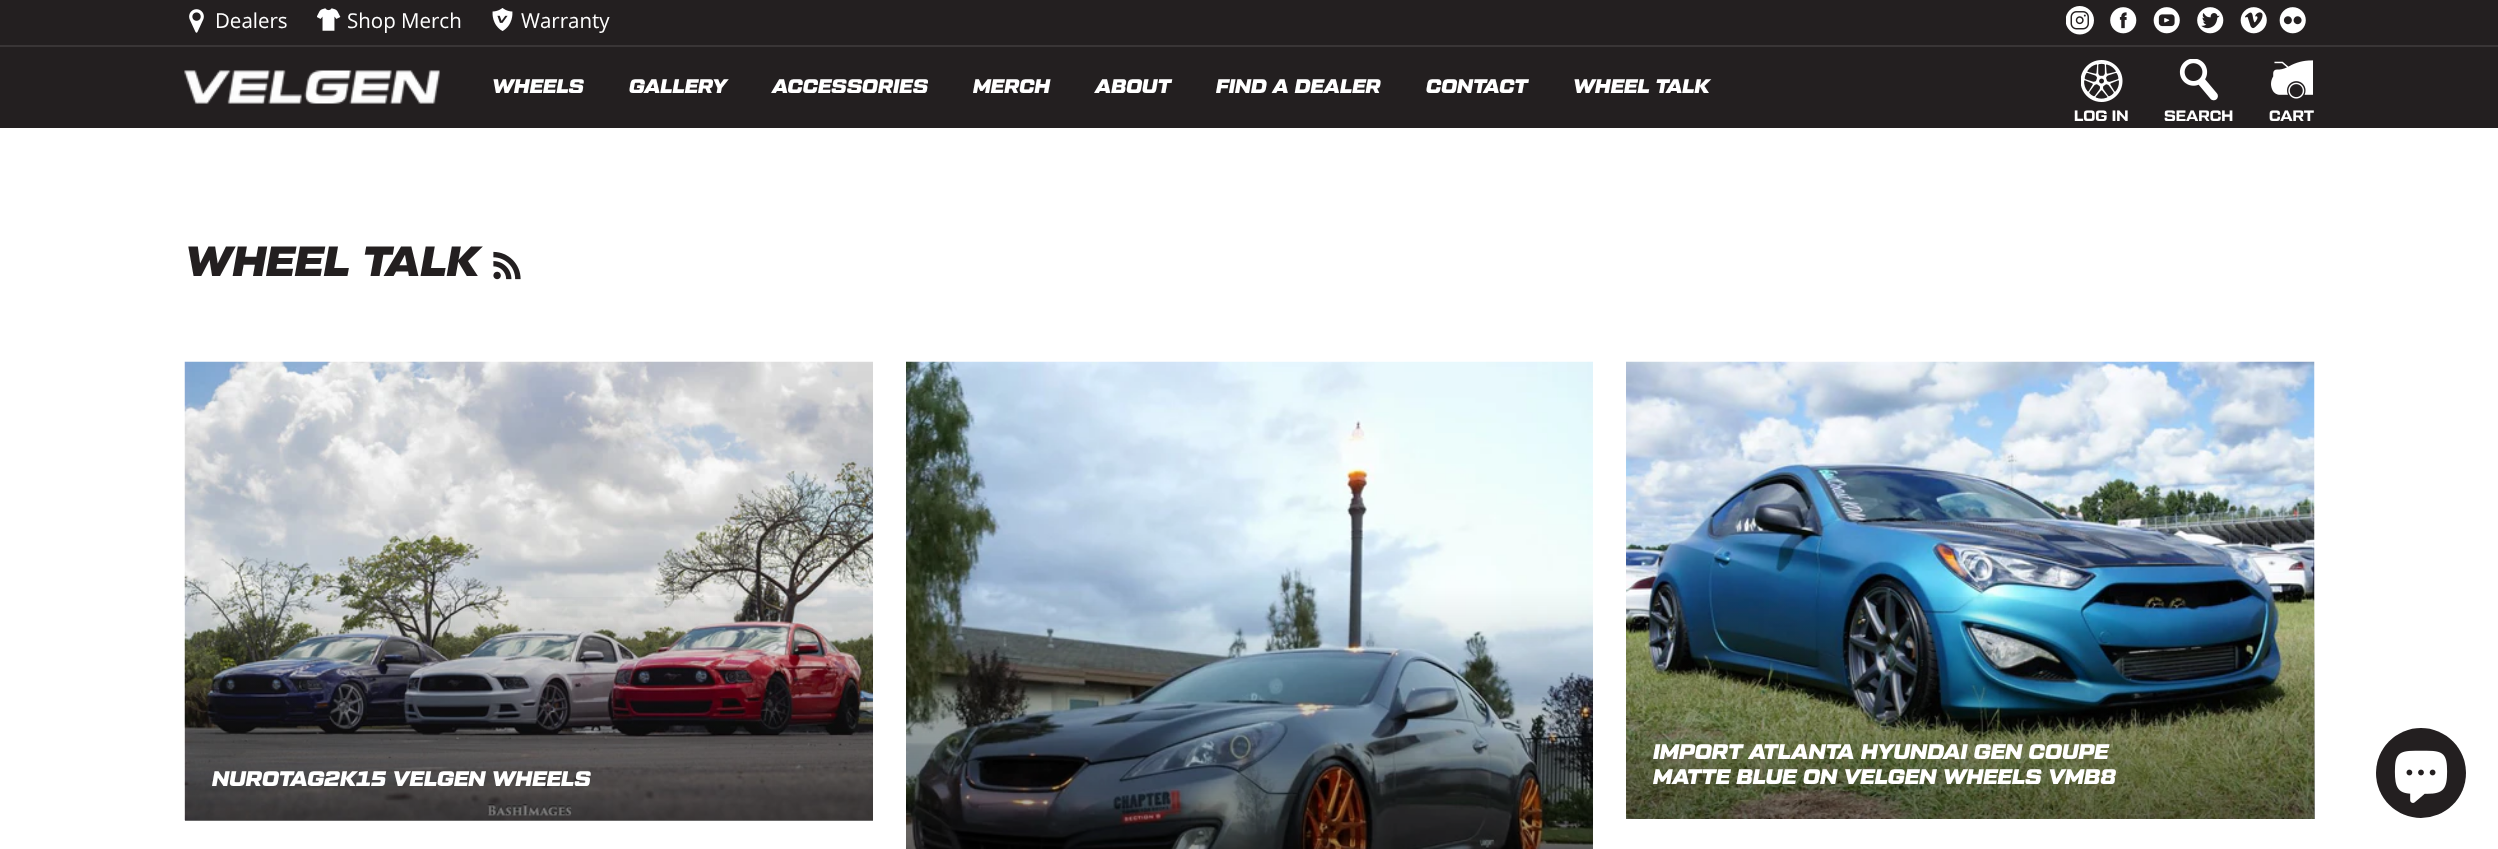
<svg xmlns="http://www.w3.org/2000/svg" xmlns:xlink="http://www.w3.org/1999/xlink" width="2498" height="849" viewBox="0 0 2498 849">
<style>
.cls-1{font:20.5px Open Sans;fill:#ffffff}
.cls-2{font:italic 19.5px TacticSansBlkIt;fill:#ffffff}
.cls-3{font:15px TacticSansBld;fill:#ffffff}
.cls-4{font:italic 42px TacticSansBlkIt;fill:#231f20}
.cls-5{font:italic 21px TacticSansBlkIt;fill:#ffffff}
</style>
<defs>
<linearGradient id="g1" gradientUnits="userSpaceOnUse" x1="529" y1="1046" x2="529" y2="587"><stop offset="0" stop-color="#000000"/><stop offset="1" stop-color="#000000" stop-opacity="0"/></linearGradient>
<linearGradient id="g2" gradientUnits="userSpaceOnUse" x1="1970" y1="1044" x2="1970" y2="587"><stop offset="0" stop-color="#000000"/><stop offset="1" stop-color="#000000" stop-opacity="0"/></linearGradient>
</defs>
<rect width="100%" height="100%" fill="#ffffff"/>
<rect fill="#231f20" x="0" y="0" width="2498" height="45"/>
<image xlink:href="image0.png" x="189" y="9" width="15" height="24"/>
<image xlink:href="image1.png" x="317" y="8" width="24" height="23"/>
<image xlink:href="image2.png" x="492" y="8" width="21" height="23"/>
<image xlink:href="image3.png" x="2066" y="6" width="28" height="29"/>
<image xlink:href="image4.png" x="2110" y="7" width="27" height="27"/>
<image xlink:href="image5.png" x="2153" y="7" width="27" height="27"/>
<image xlink:href="image6.png" x="2197" y="7" width="27" height="27"/>
<image xlink:href="image7.png" x="2240" y="7" width="27" height="27"/>
<image xlink:href="image8.png" x="2279" y="7" width="27" height="27"/>
<rect fill="#231f20" x="0" y="47" width="2498" height="81"/>
<rect fill="#393536" x="0" y="45" width="2498" height="2"/>
<image xlink:href="image9.png" x="184" y="70" width="256" height="34"/>
<image xlink:href="image10.png" x="2081" y="60" width="42" height="42"/>
<image xlink:href="image11.png" x="2179" y="59" width="39" height="42"/>
<image xlink:href="image12.png" x="2271" y="60" width="42" height="39"/>
<image xlink:href="image13.png" x="493" y="251" width="28" height="29"/>
<image xlink:href="image14.png" x="184" y="361" width="689" height="460"/>
<rect fill="url(#g1)" x="185" y="597" width="688" height="224"/>
<image xlink:href="image15.png" x="906" y="361" width="687" height="488"/>
<image xlink:href="image16.png" x="1626" y="361" width="689" height="458"/>
<rect fill="url(#g2)" x="1626" y="597" width="689" height="222"/>
<circle fill="#231f20" cx="2421" cy="773" r="45"/>
<image xlink:href="image17.png" x="2394" y="750" width="54" height="53"/>
<text class="cls-1" x="215" y="28">Dealers</text>
<text class="cls-1" x="347" y="28">Shop Merch</text>
<text class="cls-1" x="521" y="28">Warranty</text>
<text class="cls-2" x="492" y="93">WHEELS</text>
<text class="cls-2" x="629" y="93">GALLERY</text>
<text class="cls-2" x="772" y="93">ACCESSORIES</text>
<text class="cls-2" x="973" y="93">MERCH</text>
<text class="cls-2" x="1095" y="93">ABOUT</text>
<text class="cls-2" x="1216" y="93">FIND A DEALER</text>
<text class="cls-2" x="1426" y="93">CONTACT</text>
<text class="cls-2" x="1573" y="93">WHEEL TALK</text>
<text class="cls-3" x="2074" y="121">LOG IN</text>
<text class="cls-3" x="2164" y="121">SEARCH</text>
<text class="cls-3" x="2269" y="121">CART</text>
<text class="cls-4" x="185" y="276">WHEEL TALK</text>
<text class="cls-5" x="212" y="786">NUROTAG2K15 VELGEN WHEELS</text>
<text class="cls-5"><tspan x="1653" y="759">IMPORT ATLANTA HYUNDAI GEN COUPE</tspan><tspan x="1653" y="784">MATTE BLUE ON VELGEN WHEELS VMB8</tspan></text>
</svg>
